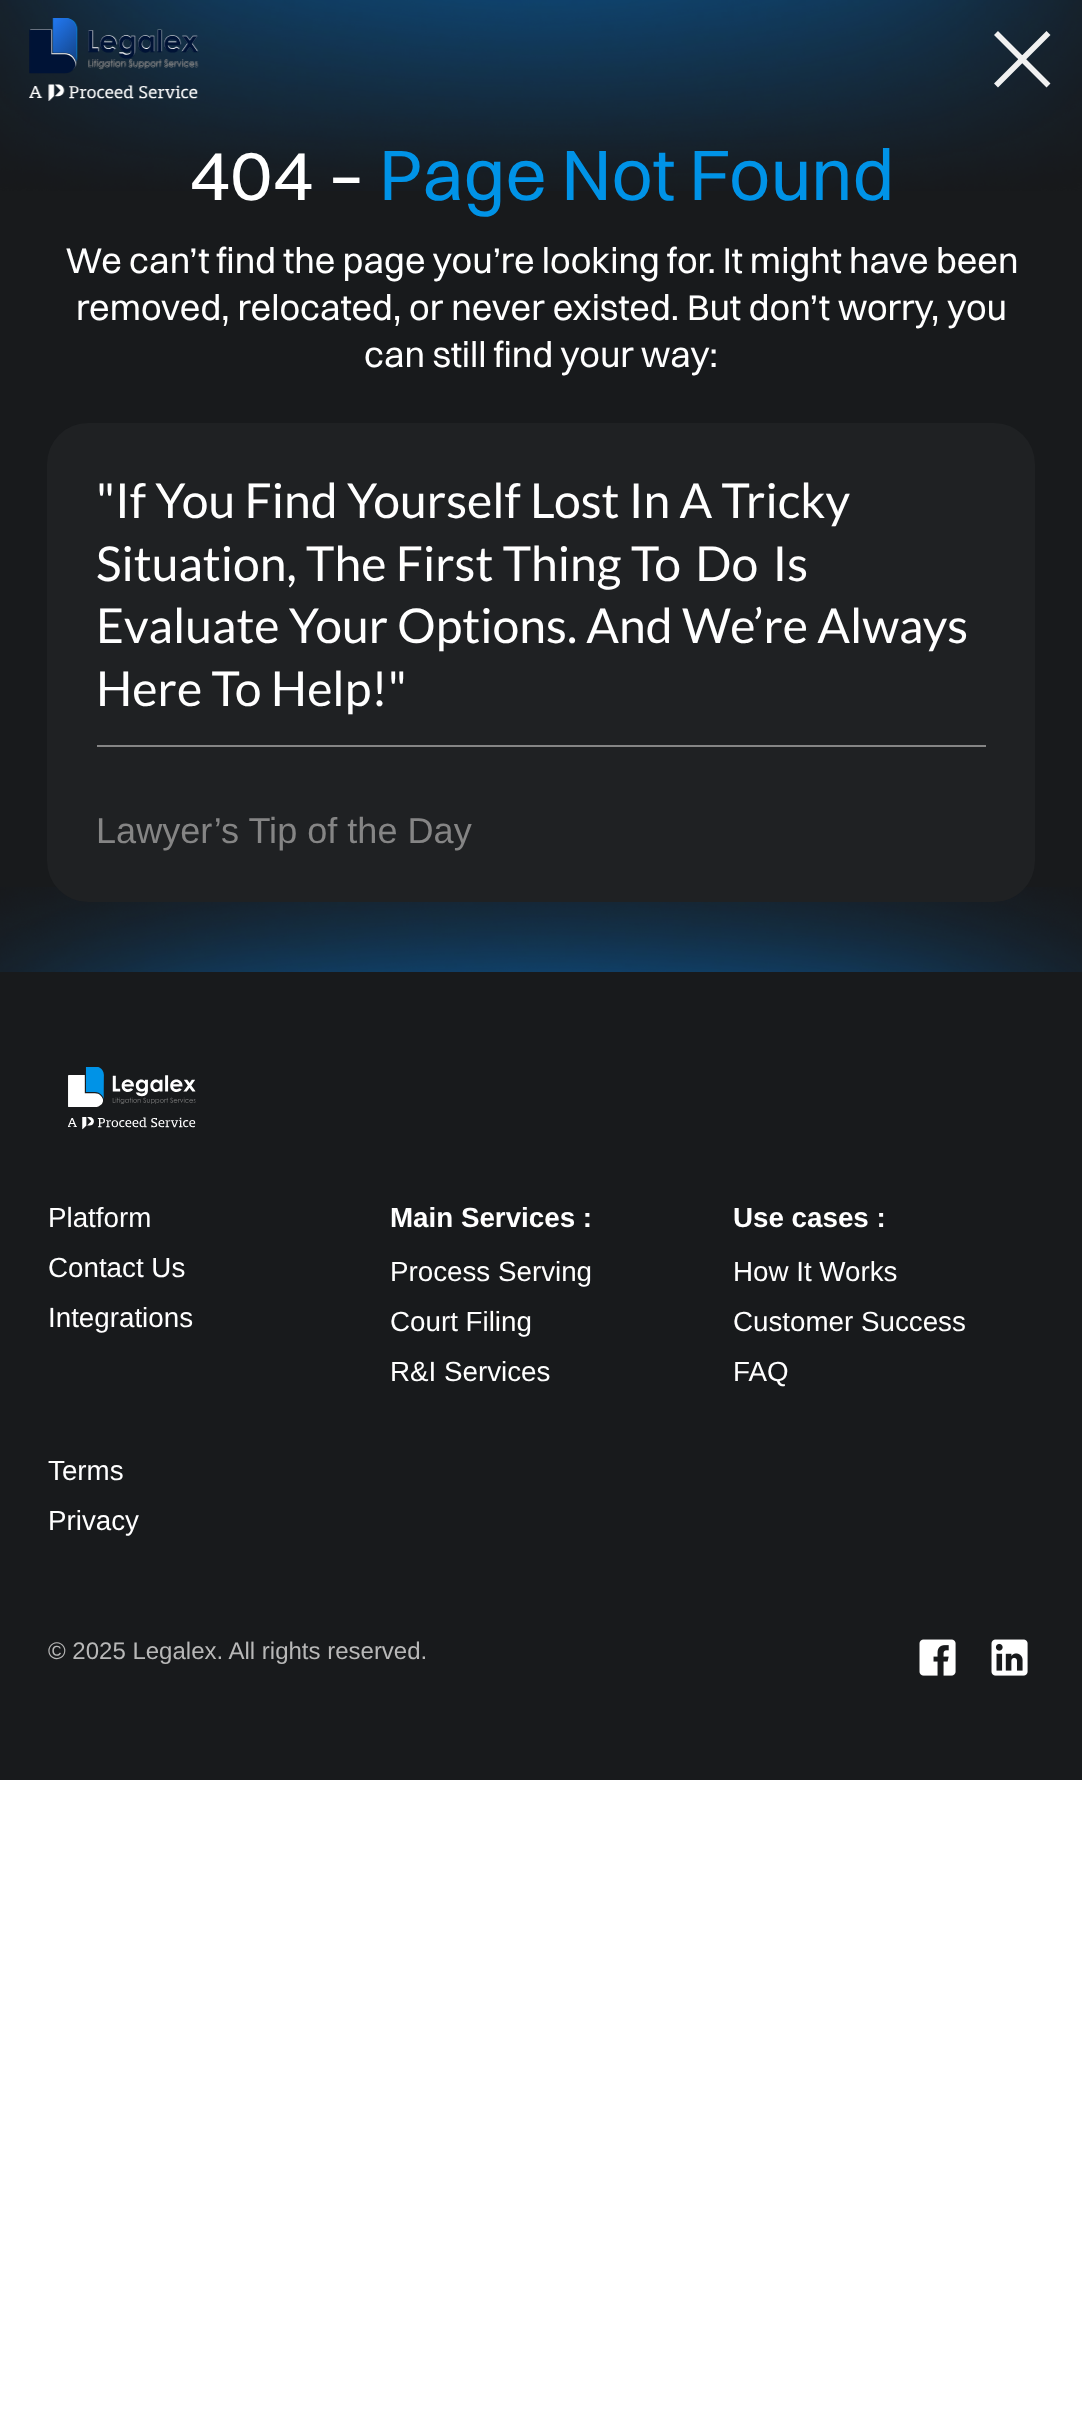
<svg xmlns="http://www.w3.org/2000/svg" xmlns:xlink="http://www.w3.org/1999/xlink" width="1082" height="2412" viewBox="0 0 1082 2412">
<style>
.cls-1{font:72.25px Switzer;fill:#ffffff}
.cls-2{font:72.25px Switzer;fill:#0093e7}
.cls-3{font:36.1px Switzer;fill:#ffffff}
.cls-4{font:48.1px Lato;fill:#ffffff}
.cls-5{font:36.1px Liberation Sans;fill:#858585}
.cls-6{font:27.75px Liberation Sans;fill:#ffffff}
.cls-7{font:bold 27.75px Liberation Sans;fill:#ffffff}
.cls-8{font:24px Liberation Sans;fill:#b8b8b8}
</style>
<rect width="100%" height="100%" fill="#ffffff"/>
<rect fill="#181a1c" x="0" y="0" width="1082" height="1780"/>
<image xlink:href="image2.png" x="0" y="0" width="1082" height="191"/>
<image xlink:href="image0.png" x="29" y="18" width="170" height="83"/>
<image xlink:href="image1.png" x="29" y="18" width="170" height="56"/>
<path fill="none" stroke="#f1f1f1" stroke-width="5.6" stroke-linejoin="round" d="M1048.5 85.5L996 33M1048.5 33L996 85.5"/>
<image xlink:href="image3.png" x="0" y="887" width="1082" height="85"/>
<rect fill="#1f2123" x="47" y="423" width="988" height="479" rx="41"/>
<rect fill="#858585" x="97" y="745" width="889" height="2"/>
<image xlink:href="image4.png" x="68" y="1067" width="128" height="63"/>
<image xlink:href="image5.png" x="919" y="1639" width="37" height="37"/>
<image xlink:href="image6.png" x="991" y="1639" width="37" height="37"/>
<text class="cls-1" x="189" y="200">404 –</text>
<text class="cls-2" x="379" y="200">Page Not Found</text>
<text class="cls-3" x="65" y="273">We can’t find the page you’re looking for. It might have been</text>
<text class="cls-3" x="76" y="320" word-spacing="0.75">removed, relocated, or never existed. But don’t worry, you</text>
<text class="cls-3" x="364" y="367">can still find your way:</text>
<text class="cls-4"><tspan x="96" y="518">"If You Find Yourself Lost In A Tricky</tspan><tspan x="96" y="581">Situation, The First Thing</tspan></text>
<text class="cls-4" x="631" y="581" word-spacing="5">To Do Is</text>
<text class="cls-4"><tspan x="96" y="643">Evaluate Your Options. And We’re Always</tspan><tspan x="96" y="706">Here To Help!"</tspan></text>
<text class="cls-5" x="96" y="843">Lawyer’s Tip of the Day</text>
<text class="cls-6"><tspan x="48" y="1227">Platform</tspan><tspan x="48" y="1277">Contact Us</tspan><tspan x="48" y="1327">Integrations</tspan></text>
<text class="cls-7" x="390" y="1227">Main Services :</text>
<text class="cls-6"><tspan x="390" y="1281">Process Serving</tspan><tspan x="390" y="1331">Court Filing</tspan><tspan x="390" y="1381">R&amp;I Services</tspan></text>
<text class="cls-7" x="733" y="1227">Use cases :</text>
<text class="cls-6"><tspan x="733" y="1281">How It Works</tspan><tspan x="733" y="1331">Customer Success</tspan><tspan x="733" y="1381">FAQ</tspan></text>
<text class="cls-6"><tspan x="48" y="1480">Terms</tspan><tspan x="48" y="1530">Privacy</tspan></text>
<text class="cls-8" x="48" y="1659">© 2025 Legalex. All rights reserved.</text>
</svg>
